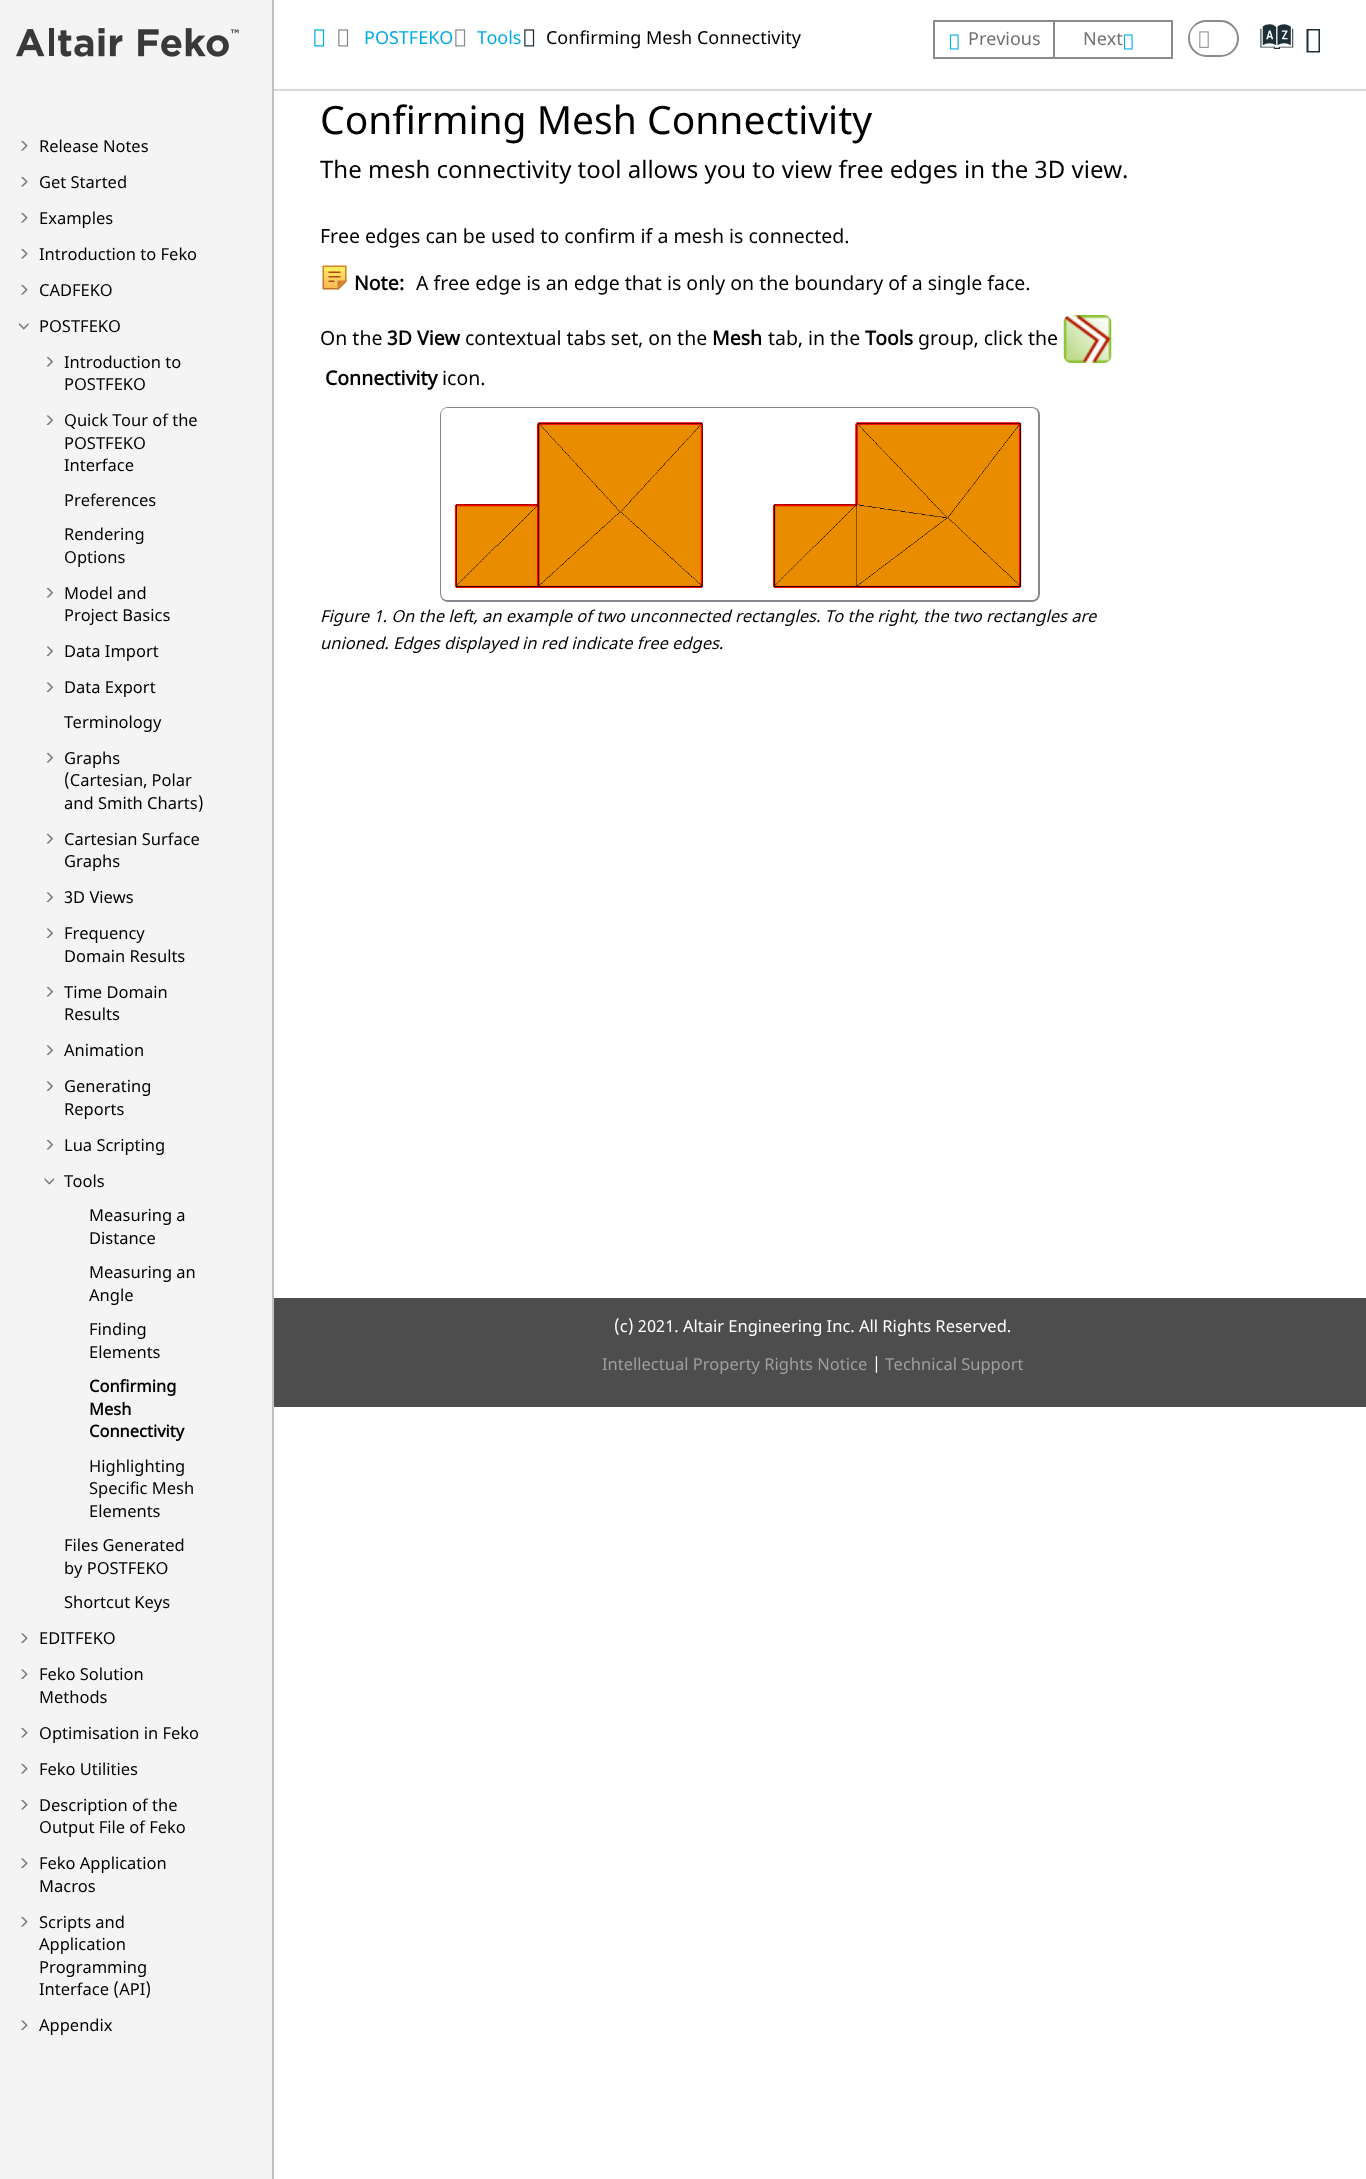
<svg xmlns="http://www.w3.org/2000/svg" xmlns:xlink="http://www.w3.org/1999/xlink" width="1366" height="2179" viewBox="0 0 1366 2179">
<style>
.cls-1{font:16.5px Noto Sans;fill:#000000}
.cls-2{font:bold 16.5px Noto Sans;fill:#000000}
.cls-3{font:18px Noto Sans;fill:#00aae6}
.cls-4{font:18px Noto Sans;fill:#000000}
.cls-5{font:18px Noto Sans;fill:#707070}
.cls-6{font:35px Oxygen;fill:#1d2e38}
.cls-7{font:39px Noto Sans;fill:#000000}
.cls-8{font:24px Noto Sans;fill:#000000}
.cls-9{font:19.5px Noto Sans;fill:#000000}
.cls-10{font:bold 19.5px Noto Sans;fill:#000000}
.cls-11{font:italic 16.5px Noto Sans;fill:#000000}
.cls-12{font:16.5px Noto Sans;fill:#ffffff}
.cls-13{font:16.5px Noto Sans;fill:#9f9f9f}
</style>
<rect width="100%" height="100%" fill="#ffffff"/>
<rect fill="#f4f4f4" x="0" y="0" width="272" height="2179"/>
<rect fill="#c0c0c0" x="272" y="0" width="2" height="2179"/>
<image xlink:href="image0.png" x="16" y="28" width="223" height="29"/>
<image xlink:href="image1.png" x="21" y="140" width="7" height="11"/>
<image xlink:href="image1.png" x="21" y="176" width="7" height="11"/>
<image xlink:href="image1.png" x="21" y="212" width="7" height="11"/>
<image xlink:href="image1.png" x="21" y="248" width="7" height="11"/>
<image xlink:href="image1.png" x="21" y="284" width="7" height="11"/>
<image xlink:href="image2.png" x="19" y="323" width="10" height="7"/>
<image xlink:href="image3.png" x="46" y="356" width="7" height="11"/>
<image xlink:href="image4.png" x="46" y="415" width="7" height="10"/>
<image xlink:href="image3.png" x="46" y="587" width="7" height="11"/>
<image xlink:href="image4.png" x="46" y="646" width="7" height="10"/>
<image xlink:href="image4.png" x="46" y="682" width="7" height="10"/>
<image xlink:href="image3.png" x="46" y="752" width="7" height="11"/>
<image xlink:href="image3.png" x="46" y="833" width="7" height="11"/>
<image xlink:href="image4.png" x="46" y="892" width="7" height="10"/>
<image xlink:href="image4.png" x="46" y="928" width="7" height="10"/>
<image xlink:href="image3.png" x="46" y="986" width="7" height="11"/>
<image xlink:href="image4.png" x="46" y="1045" width="7" height="10"/>
<image xlink:href="image4.png" x="46" y="1081" width="7" height="10"/>
<image xlink:href="image3.png" x="46" y="1139" width="7" height="11"/>
<image xlink:href="image5.png" x="44" y="1178" width="11" height="7"/>
<image xlink:href="image6.png" x="21" y="1633" width="7" height="10"/>
<image xlink:href="image6.png" x="21" y="1669" width="7" height="10"/>
<image xlink:href="image1.png" x="21" y="1727" width="7" height="11"/>
<image xlink:href="image1.png" x="21" y="1763" width="7" height="11"/>
<image xlink:href="image1.png" x="21" y="1799" width="7" height="11"/>
<image xlink:href="image6.png" x="21" y="1858" width="7" height="10"/>
<image xlink:href="image1.png" x="21" y="1916" width="7" height="11"/>
<image xlink:href="image6.png" x="21" y="2020" width="7" height="10"/>
<rect fill="#d8d8d8" x="274" y="89" width="1092" height="2"/>
<image xlink:href="image7.png" x="314" y="29" width="11" height="18"/>
<image xlink:href="image8.png" x="338" y="29" width="11" height="18"/>
<image xlink:href="image8.png" x="455" y="29" width="11" height="18"/>
<image xlink:href="image9.png" x="524" y="29" width="11" height="18"/>
<rect fill="#8b8b8b" x="933" y="20" width="120" height="2"/>
<rect fill="#8b8b8b" x="933" y="57" width="120" height="2"/>
<rect fill="#8b8b8b" x="933" y="20" width="2" height="39"/>
<image xlink:href="image10.png" x="949" y="34" width="10" height="16"/>
<rect fill="none" stroke="#8b8b8b" stroke-width="2" x="1054" y="21" width="118" height="37"/>
<image xlink:href="image10.png" x="1123" y="34" width="10" height="16"/>
<rect fill="none" stroke="#8b8b8b" stroke-width="2" x="1189" y="21" width="49" height="35" rx="17.5"/>
<rect fill="#ffffff" x="1190" y="23" width="30" height="28" rx="14"/>
<image xlink:href="image11.png" x="1199" y="31" width="10" height="17"/>
<path fill="#1d2e38" d="M1306.5 52.5V29H1320V52.5ZM1308.5 51H1318.5V30.5H1308.5Z"/>
<image xlink:href="image12.png" x="322" y="265" width="25" height="25"/>
<image xlink:href="image13.png" x="1063" y="315" width="49" height="48"/>
<rect fill="none" stroke="#85898d" stroke-width="2" x="441" y="408" width="598" height="193" rx="7"/>
<image xlink:href="image14.png" x="441" y="408" width="597" height="192"/>
<rect fill="#4d4d4d" x="274" y="1298" width="1092" height="109"/>
<text class="cls-1" x="39" y="152">Release Notes</text>
<text class="cls-1" x="39" y="188">Get Started</text>
<text class="cls-1" x="39" y="224">Examples</text>
<text class="cls-1" x="39" y="260">Introduction to Feko</text>
<text class="cls-1" x="39" y="296">CADFEKO</text>
<text class="cls-1" x="39" y="332">POSTFEKO</text>
<text class="cls-1"><tspan x="64" y="368">Introduction to</tspan><tspan x="64" y="390">POSTFEKO</tspan></text>
<text class="cls-1"><tspan x="64" y="426">Quick Tour of the</tspan><tspan x="64" y="449">POSTFEKO</tspan><tspan x="64" y="471">Interface</tspan></text>
<text class="cls-1" x="64" y="506">Preferences</text>
<text class="cls-1"><tspan x="64" y="540">Rendering</tspan><tspan x="64" y="563">Options</tspan></text>
<text class="cls-1"><tspan x="64" y="599">Model and</tspan><tspan x="64" y="621">Project Basics</tspan></text>
<text class="cls-1" x="64" y="657">Data Import</text>
<text class="cls-1" x="64" y="693">Data Export</text>
<text class="cls-1" x="64" y="728">Terminology</text>
<text class="cls-1"><tspan x="64" y="764">Graphs</tspan><tspan x="64" y="786">(Cartesian, Polar</tspan><tspan x="64" y="809">and Smith Charts)</tspan></text>
<text class="cls-1"><tspan x="64" y="845">Cartesian Surface</tspan><tspan x="64" y="867">Graphs</tspan></text>
<text class="cls-1" x="64" y="903">3D Views</text>
<text class="cls-1"><tspan x="64" y="939">Frequency</tspan><tspan x="64" y="962">Domain Results</tspan></text>
<text class="cls-1"><tspan x="64" y="998">Time Domain</tspan><tspan x="64" y="1020">Results</tspan></text>
<text class="cls-1" x="64" y="1056">Animation</text>
<text class="cls-1"><tspan x="64" y="1092">Generating</tspan><tspan x="64" y="1115">Reports</tspan></text>
<text class="cls-1" x="64" y="1151">Lua Scripting</text>
<text class="cls-1" x="64" y="1187">Tools</text>
<text class="cls-1"><tspan x="89" y="1221">Measuring a</tspan><tspan x="89" y="1244">Distance</tspan></text>
<text class="cls-1"><tspan x="89" y="1278">Measuring an</tspan><tspan x="89" y="1301">Angle</tspan></text>
<text class="cls-1"><tspan x="89" y="1335">Finding</tspan><tspan x="89" y="1358">Elements</tspan></text>
<text class="cls-2"><tspan x="89" y="1392">Confirming</tspan><tspan x="89" y="1415">Mesh</tspan><tspan x="89" y="1437">Connectivity</tspan></text>
<text class="cls-1"><tspan x="89" y="1472">Highlighting</tspan><tspan x="89" y="1494">Specific Mesh</tspan><tspan x="89" y="1517">Elements</tspan></text>
<text class="cls-1"><tspan x="64" y="1551">Files Generated</tspan><tspan x="64" y="1574">by POSTFEKO</tspan></text>
<text class="cls-1" x="64" y="1608">Shortcut Keys</text>
<text class="cls-1" x="39" y="1644">EDITFEKO</text>
<text class="cls-1"><tspan x="39" y="1680">Feko Solution</tspan><tspan x="39" y="1703">Methods</tspan></text>
<text class="cls-1" x="39" y="1739">Optimisation in Feko</text>
<text class="cls-1" x="39" y="1775">Feko Utilities</text>
<text class="cls-1"><tspan x="39" y="1811">Description of the</tspan><tspan x="39" y="1833">Output File of Feko</tspan></text>
<text class="cls-1"><tspan x="39" y="1869">Feko Application</tspan><tspan x="39" y="1892">Macros</tspan></text>
<text class="cls-1"><tspan x="39" y="1928">Scripts and</tspan><tspan x="39" y="1950">Application</tspan><tspan x="39" y="1973">Programming</tspan><tspan x="39" y="1995">Interface (API)</tspan></text>
<text class="cls-1" x="39" y="2031">Appendix</text>
<text class="cls-3" x="364" y="44">POSTFEKO</text>
<text class="cls-3" x="477" y="44">Tools</text>
<text class="cls-4" x="546" y="44">Confirming Mesh Connectivity</text>
<text class="cls-5" x="968" y="45">Previous</text>
<text class="cls-5" x="1083" y="45">Next</text>
<text class="cls-6" x="1264" y="53">a</text>
<text class="cls-7" x="320" y="134">Confirming Mesh Connectivity</text>
<text class="cls-8" x="320" y="178">The mesh connectivity tool allows you to view free edges in the 3D view.</text>
<text class="cls-9" x="320" y="243">Free edges can be used to confirm if a mesh is connected.</text>
<text class="cls-10" x="354" y="290">Note:</text>
<text class="cls-9" x="416" y="290">A free edge is an edge that is only on the boundary of a single face.</text>
<text class="cls-9" x="320" y="345">On the</text>
<text class="cls-10" x="387" y="345">3D View</text>
<text class="cls-9" x="465" y="345">contextual tabs set, on the</text>
<text class="cls-10" x="712" y="345">Mesh</text>
<text class="cls-9" x="768" y="345">tab, in the</text>
<text class="cls-10" x="865" y="345">Tools</text>
<text class="cls-9" x="918" y="345">group, click the</text>
<text class="cls-10" x="325" y="385">Connectivity</text>
<text class="cls-9" x="442" y="385">icon.</text>
<text class="cls-11"><tspan x="320" y="622">Figure 1. On the left, an example of two unconnected rectangles. To the right, the two rectangles are</tspan><tspan x="320" y="649">unioned. Edges displayed in red indicate free edges.</tspan></text>
<text class="cls-12" x="614" y="1332">(c) 2021. Altair Engineering Inc. All Rights Reserved.</text>
<text class="cls-13" x="602" y="1370">Intellectual Property Rights Notice</text>
<text class="cls-12" x="872" y="1370">|</text>
<text class="cls-13" x="885" y="1370">Technical Support</text>
</svg>
